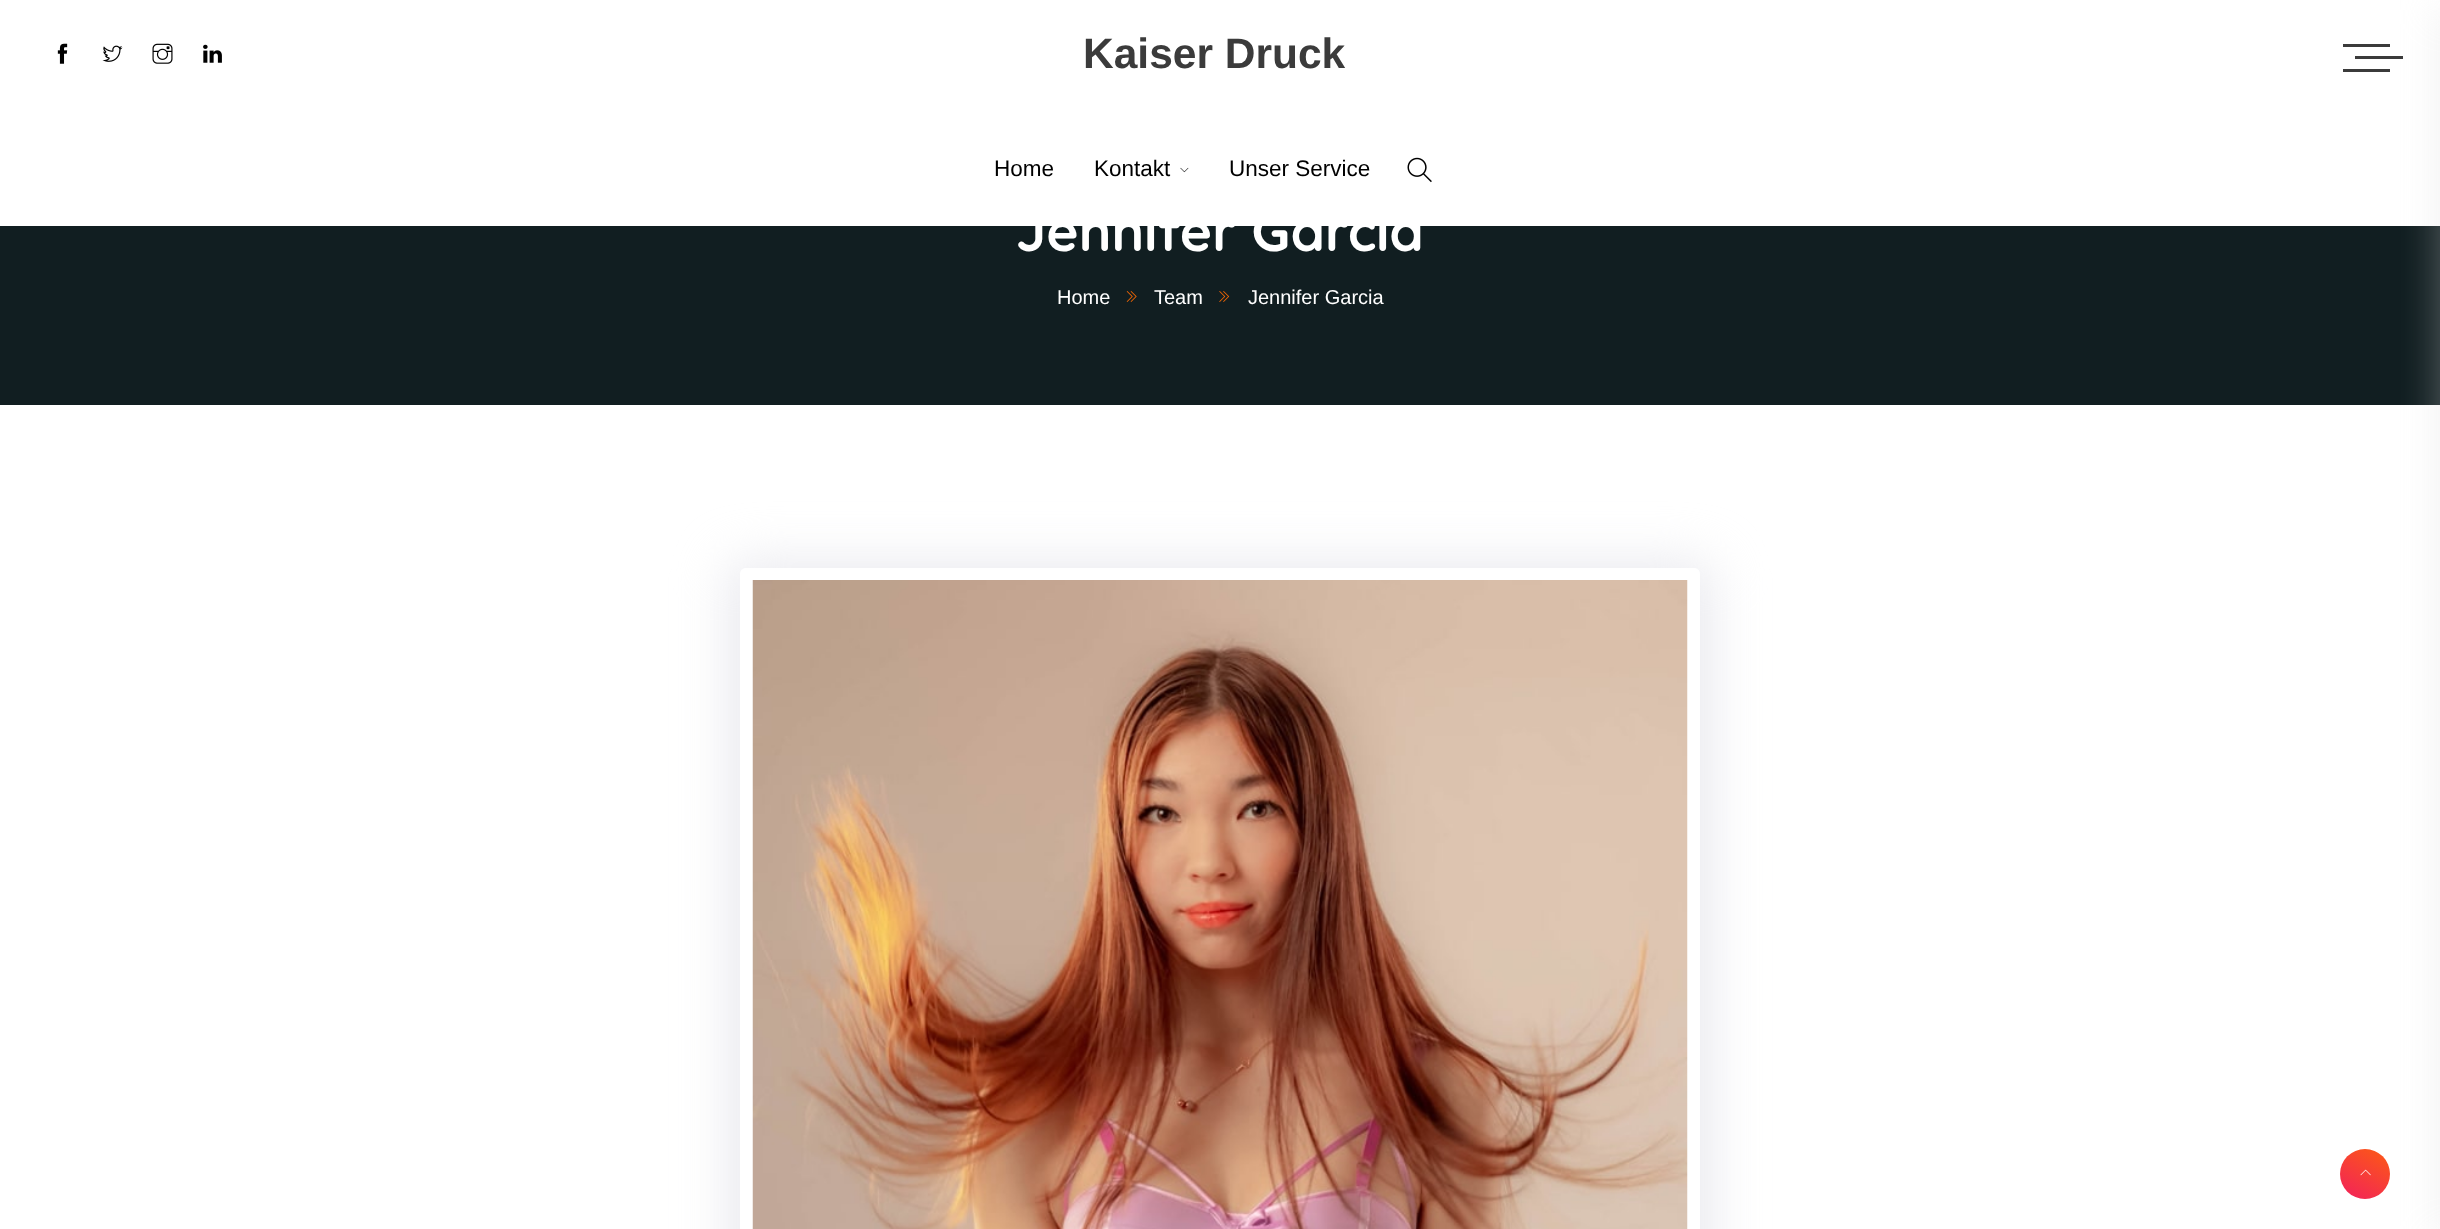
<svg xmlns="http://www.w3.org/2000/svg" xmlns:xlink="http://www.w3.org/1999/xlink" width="2440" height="1229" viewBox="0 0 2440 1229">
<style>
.cls-1{font:bold 42.5px Liberation Sans;fill:#3b3b3b}
.cls-2{font:22.5px Liberation Sans;fill:#000000}
.cls-3{font:300 55px Quicksand;fill:#ffffff}
.cls-4{font:20px Liberation Sans;fill:#ffffff}
</style>
<defs>
<clipPath id="clip1"><path d="M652 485H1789V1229H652ZM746 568H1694C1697.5 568 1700 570.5 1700 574V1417C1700 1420.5 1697.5 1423 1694 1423H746C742.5 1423 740 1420.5 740 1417V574C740 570.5 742.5 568 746 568Z" clip-rule="evenodd"/></clipPath>
<linearGradient id="g1" gradientUnits="userSpaceOnUse" x1="2391" y1="1129" x2="2334" y2="1227"><stop offset="0" stop-color="#ff6a00"/><stop offset="1" stop-color="#ee0979"/></linearGradient>
</defs>
<rect width="100%" height="100%" fill="#ffffff"/>
<image xlink:href="image0.png" x="57" y="43" width="11" height="21"/>
<image xlink:href="image1.png" x="102" y="45" width="21" height="17"/>
<image xlink:href="image2.png" x="152" y="43" width="21" height="21"/>
<image xlink:href="image3.png" x="203" y="44" width="19" height="19"/>
<rect fill="#3b3b3b" x="2343" y="44" width="47" height="3"/>
<rect fill="#3b3b3b" x="2355" y="56" width="48" height="3"/>
<rect fill="#3b3b3b" x="2343" y="69" width="47" height="3"/>
<image xlink:href="image4.png" x="1180" y="167" width="9" height="6"/>
<image xlink:href="image5.png" x="1407" y="157" width="25" height="26"/>
<rect fill="#111e21" x="0" y="226" width="2440" height="179"/>
<image xlink:href="image6.png" x="1126" y="291" width="11" height="11"/>
<image xlink:href="image7.png" x="1219" y="291" width="11" height="11"/>
<g clip-path="url(#clip1)">
<rect fill="#eaeaef" filter="blur(25px)" x="728" y="561" width="985" height="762" rx="19"/>
</g>
<image xlink:href="image8.png" x="752" y="580" width="936" height="649"/>
<circle fill="url(#g1)" cx="2365" cy="1174" r="25"/>
<image xlink:href="image9.png" x="2360" y="1169" width="11" height="7"/>
<rect fill="#d6d6d6" fill-opacity="0.37" filter="blur(20px)" x="2440" y="10" width="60" height="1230"/>
<text class="cls-1" x="1083" y="68">Kaiser Druck</text>
<text class="cls-2" x="994" y="176">Home</text>
<text class="cls-2" x="1094" y="176">Kontakt</text>
<text class="cls-2" x="1229" y="176">Unser Service</text>
<text class="cls-3" x="1016" y="251">Jennifer Garcia</text>
<text class="cls-4" x="1057" y="304">Home</text>
<text class="cls-4" x="1154" y="304">Team</text>
<text class="cls-4" x="1248" y="304">Jennifer Garcia</text>
</svg>
